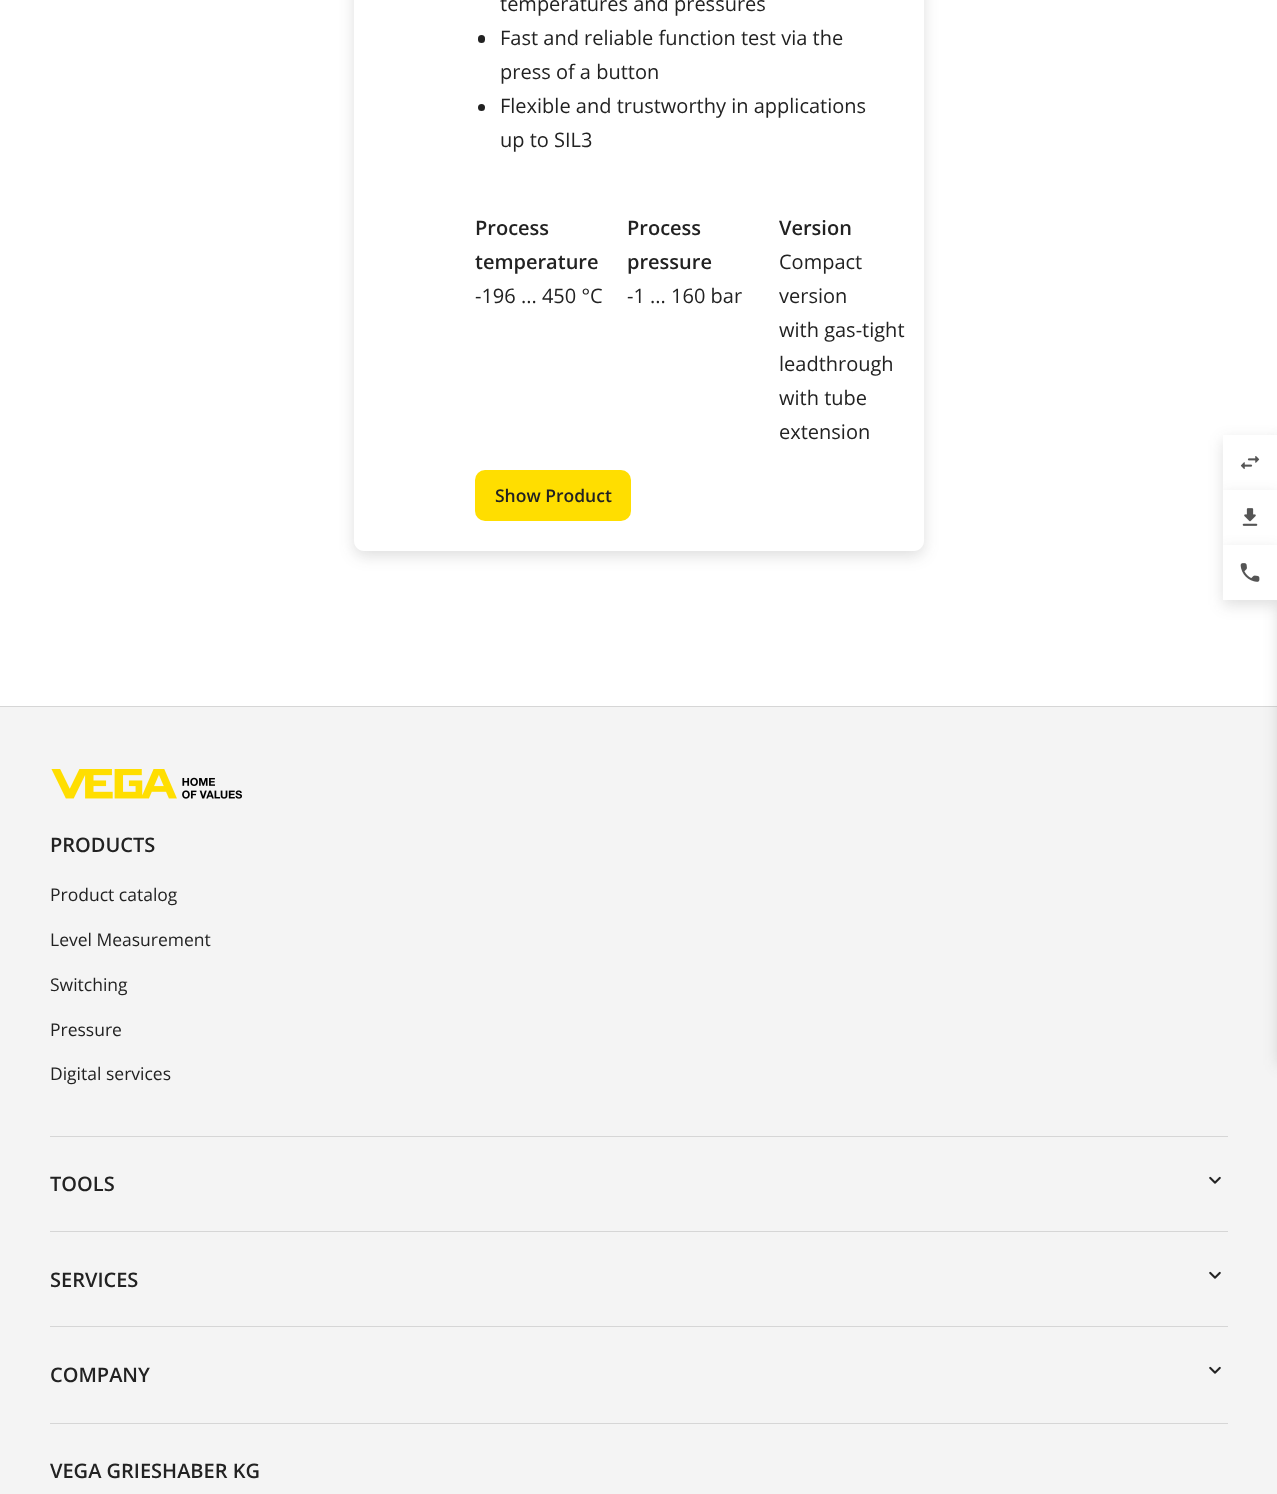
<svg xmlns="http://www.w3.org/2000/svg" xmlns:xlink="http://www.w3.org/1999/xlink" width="1277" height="1494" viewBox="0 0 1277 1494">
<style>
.cls-1{font:20px Open Sans;fill:#222222}
.cls-2{font:600 20px Open Sans;fill:#222222}
.cls-3{font:600 17.5px Open Sans;fill:#222222}
.cls-4{font:17.5px Open Sans;fill:#222222}
</style>
<defs>
<clipPath id="clip1"><path d="M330 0H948V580H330ZM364-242H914C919.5-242 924-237.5 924-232V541C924 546.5 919.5 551 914 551H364C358.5 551 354 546.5 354 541V-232C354-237.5 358.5-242 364-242Z" clip-rule="evenodd"/></clipPath>
</defs>
<rect width="100%" height="100%" fill="#ffffff"/>
<g clip-path="url(#clip1)">
<rect fill="#333333" fill-opacity="0.16" filter="blur(7.5px)" x="354" y="-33" width="570" height="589" rx="10"/>
</g>
<rect fill="#222222" x="478" y="35" width="7" height="8" rx="3.5"/>
<circle fill="#222222" cx="481.5" cy="107.5" r="3.5"/>
<rect fill="#ffde00" x="475" y="470" width="156" height="51" rx="10"/>
<rect fill="#f4f4f4" x="0" y="707" width="1277" height="787"/>
<rect fill="#d6d6d6" x="0" y="706" width="1277" height="1"/>
<image xlink:href="image0.png" x="51" y="769" width="191" height="30"/>
<rect fill="#d6d6d6" x="50" y="1136" width="1178" height="1"/>
<rect fill="#d6d6d6" x="50" y="1231" width="1178" height="1"/>
<image xlink:href="image1.png" x="1209" y="1176" width="12" height="8"/>
<rect fill="#d6d6d6" x="50" y="1326" width="1178" height="1"/>
<image xlink:href="image1.png" x="1209" y="1271" width="12" height="8"/>
<rect fill="#d6d6d6" x="50" y="1423" width="1178" height="1"/>
<image xlink:href="image1.png" x="1209" y="1366" width="12" height="8"/>
<rect fill="#333333" fill-opacity="0.16" filter="blur(7.5px)" x="1223" y="440" width="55" height="55"/>
<rect fill="#333333" fill-opacity="0.16" filter="blur(7.5px)" x="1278" y="440" width="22" height="625"/>
<rect fill="#ffffff" x="1223" y="435" width="54" height="55"/>
<image xlink:href="image2.png" x="1240" y="456" width="20" height="13"/>
<rect fill="#333333" fill-opacity="0.16" filter="blur(7.5px)" x="1223" y="495" width="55" height="55"/>
<rect fill="#ffffff" x="1223" y="490" width="54" height="55"/>
<image xlink:href="image3.png" x="1242" y="508" width="16" height="18"/>
<rect fill="#333333" fill-opacity="0.16" filter="blur(7.5px)" x="1223" y="550" width="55" height="55"/>
<rect fill="#ffffff" x="1223" y="545" width="54" height="55"/>
<image xlink:href="image4.png" x="1240" y="563" width="20" height="19"/>
<text class="cls-1"><tspan x="500" y="11">temperatures and pressures</tspan><tspan x="500" y="45">Fast and reliable function test via the</tspan><tspan x="500" y="79">press of a button</tspan><tspan x="500" y="113">Flexible and trustworthy in applications</tspan><tspan x="500" y="147">up to SIL3</tspan></text>
<text class="cls-2"><tspan x="475" y="235">Process</tspan><tspan x="475" y="269">temperature</tspan></text>
<text class="cls-1" x="475" y="303">-196 ... 450 °C</text>
<text class="cls-2"><tspan x="627" y="235">Process</tspan><tspan x="627" y="269">pressure</tspan></text>
<text class="cls-1" x="627" y="303">-1 ... 160 bar</text>
<text class="cls-2" x="779" y="235">Version</text>
<text class="cls-1"><tspan x="779" y="269">Compact</tspan><tspan x="779" y="303">version</tspan><tspan x="779" y="337">with gas-tight</tspan><tspan x="779" y="371">leadthrough</tspan><tspan x="779" y="405">with tube</tspan><tspan x="779" y="439">extension</tspan></text>
<text class="cls-3" x="495" y="502">Show Product</text>
<text class="cls-2" x="50" y="852">PRODUCTS</text>
<text class="cls-4" x="50" y="901">Product catalog</text>
<text class="cls-4" x="50" y="946">Level Measurement</text>
<text class="cls-4" x="50" y="991">Switching</text>
<text class="cls-4" x="50" y="1036">Pressure</text>
<text class="cls-4" x="50" y="1080">Digital services</text>
<text class="cls-2" x="50" y="1191">TOOLS</text>
<text class="cls-2" x="50" y="1287">SERVICES</text>
<text class="cls-2" x="50" y="1382">COMPANY</text>
<text class="cls-2" x="50" y="1478">VEGA GRIESHABER KG</text>
</svg>
